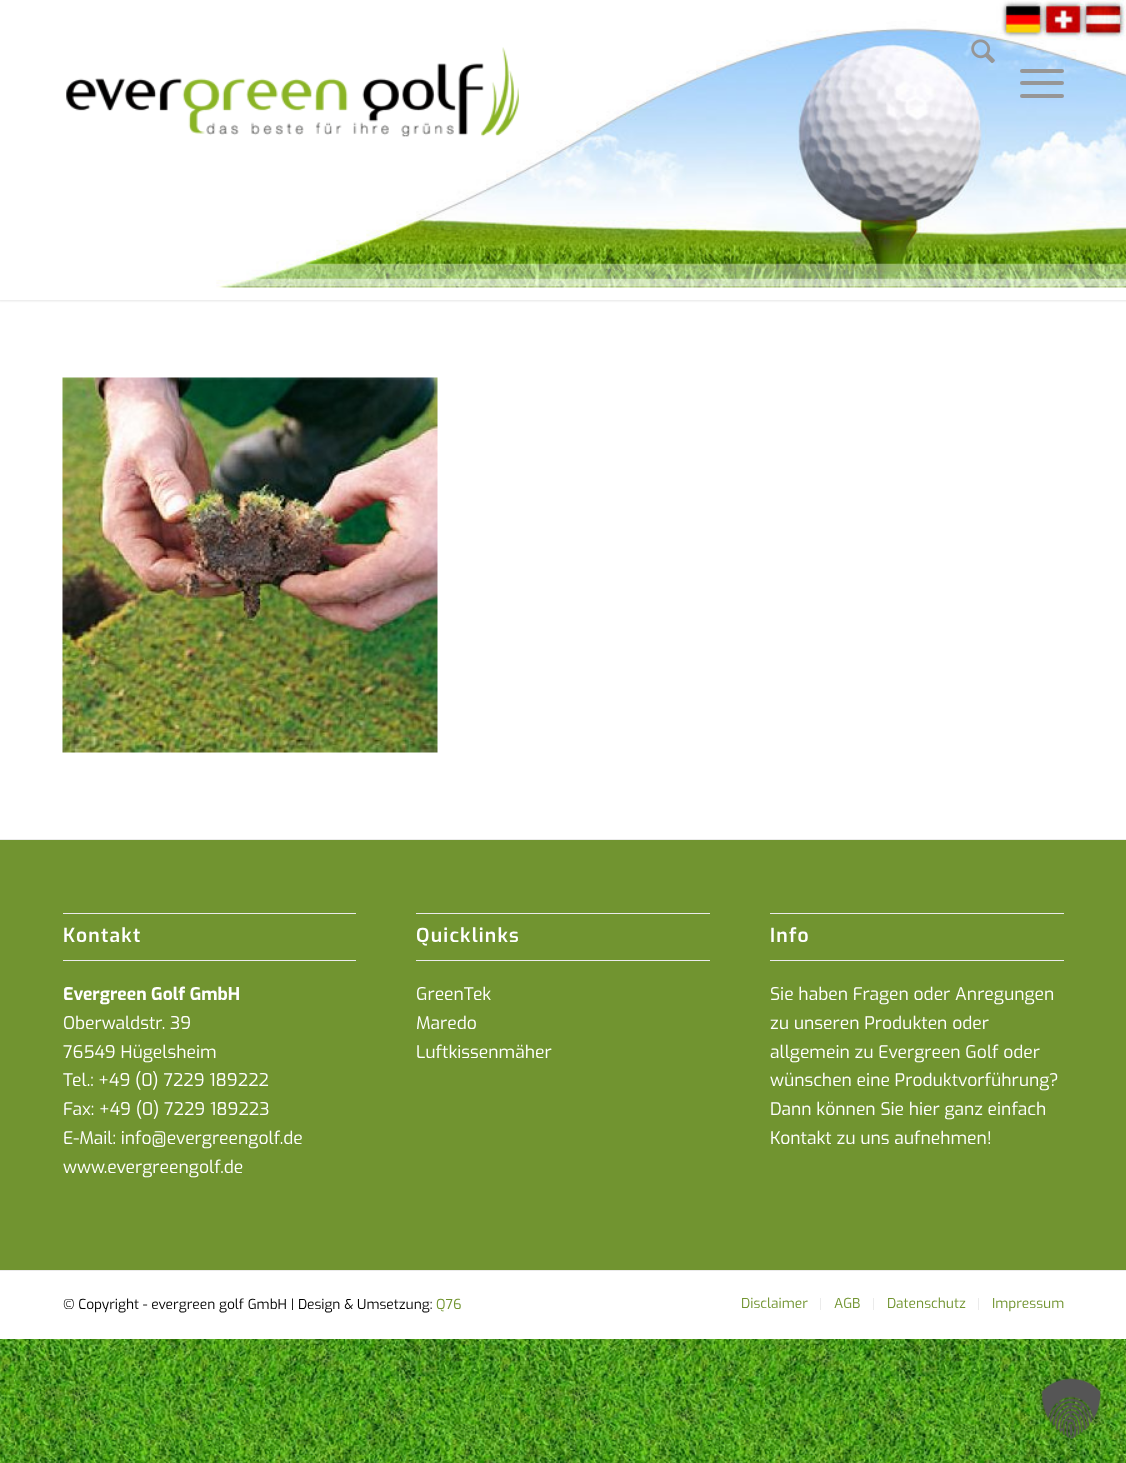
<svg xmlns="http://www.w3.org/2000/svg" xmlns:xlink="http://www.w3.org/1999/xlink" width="1126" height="1463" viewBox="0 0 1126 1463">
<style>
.cls-1{font:600 19.25px Exo;letter-spacing:1.25px;fill:#ffffff}
.cls-2{font:bold 17.5px Exo;fill:#ffffff}
.cls-3{font:17.5px Exo;fill:#ffffff}
.cls-4{font:13.75px Exo;fill:#000000}
.cls-5{font:13.75px Exo;fill:#719430}
</style>
<rect width="100%" height="100%" fill="#ffffff"/>
<image xlink:href="image0.png" x="0" y="1339" width="1126" height="124"/>
<rect fill="#000000" fill-opacity="0.1" filter="blur(1px)" x="-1" y="-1" width="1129" height="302"/>
<rect fill="#ffffff" x="0" y="0" width="1126" height="300"/>
<image xlink:href="image1.png" x="216" y="0" width="910" height="288"/>
<image xlink:href="image2.png" x="66" y="47" width="453" height="90"/>
<image xlink:href="image3.png" x="971" y="39" width="24" height="25"/>
<rect fill="#969696" x="1020" y="81" width="44" height="4" rx="2"/>
<rect fill="#969696" x="1020" y="69" width="44" height="4" rx="2"/>
<rect fill="#969696" x="1020" y="94" width="44" height="4" rx="2"/>
<image xlink:href="image4.png" x="62" y="377" width="376" height="376"/>
<rect fill="#719430" x="0" y="840" width="1126" height="430"/>
<rect fill="#ebebeb" x="0" y="839" width="1126" height="1"/>
<rect fill="#ebebeb" x="63" y="913" width="293" height="1"/>
<rect fill="#ebebeb" x="63" y="960" width="293" height="1"/>
<rect fill="#ebebeb" x="416" y="913" width="294" height="1"/>
<rect fill="#ebebeb" x="416" y="960" width="294" height="1"/>
<rect fill="#ebebeb" x="770" y="913" width="294" height="1"/>
<rect fill="#ebebeb" x="770" y="960" width="294" height="1"/>
<rect fill="#ebebeb" x="0" y="1270" width="1126" height="1"/>
<rect fill="#ebebeb" x="820" y="1298" width="1" height="12"/>
<rect fill="#ebebeb" x="873" y="1298" width="1" height="12"/>
<rect fill="#ebebeb" x="978" y="1298" width="1" height="12"/>
<image xlink:href="image5.png" x="1037" y="1374" width="68" height="66"/>
<text class="cls-1" x="63" y="942">Kontakt</text>
<text class="cls-2" x="63" y="1000">Evergreen Golf GmbH</text>
<text class="cls-3"><tspan x="63" y="1029">Oberwaldstr. 39</tspan><tspan x="63" y="1058">76549 Hügelsheim</tspan><tspan x="63" y="1086">Tel.: +49 (0) 7229 189222</tspan><tspan x="63" y="1115">Fax: +49 (0) 7229 189223</tspan><tspan x="63" y="1144">E-Mail: info@evergreengolf.de</tspan><tspan x="63" y="1173">www.evergreengolf.de</tspan></text>
<text class="cls-1" x="416" y="942">Quicklinks</text>
<text class="cls-3"><tspan x="416" y="1000">GreenTek</tspan><tspan x="416" y="1029">Maredo</tspan><tspan x="416" y="1058">Luftkissenmäher</tspan></text>
<text class="cls-1" x="770" y="942">Info</text>
<text class="cls-3"><tspan x="770" y="1000">Sie haben Fragen oder Anregungen</tspan><tspan x="770" y="1029">zu unseren Produkten oder</tspan><tspan x="770" y="1058">allgemein zu Evergreen Golf oder</tspan><tspan x="770" y="1086">wünschen eine Produktvorführung?</tspan><tspan x="770" y="1115">Dann können Sie hier ganz einfach</tspan><tspan x="770" y="1144">Kontakt zu uns aufnehmen!</tspan></text>
<text class="cls-4" x="63" y="1309">© Copyright - evergreen golf GmbH | Design &amp; Umsetzung:</text>
<text class="cls-5" x="436" y="1309">Q76</text>
<text class="cls-5" x="741" y="1308">Disclaimer</text>
<text class="cls-5" x="834" y="1308">AGB</text>
<text class="cls-5" x="887" y="1308">Datenschutz</text>
<text class="cls-5" x="992" y="1308">Impressum</text>
</svg>
